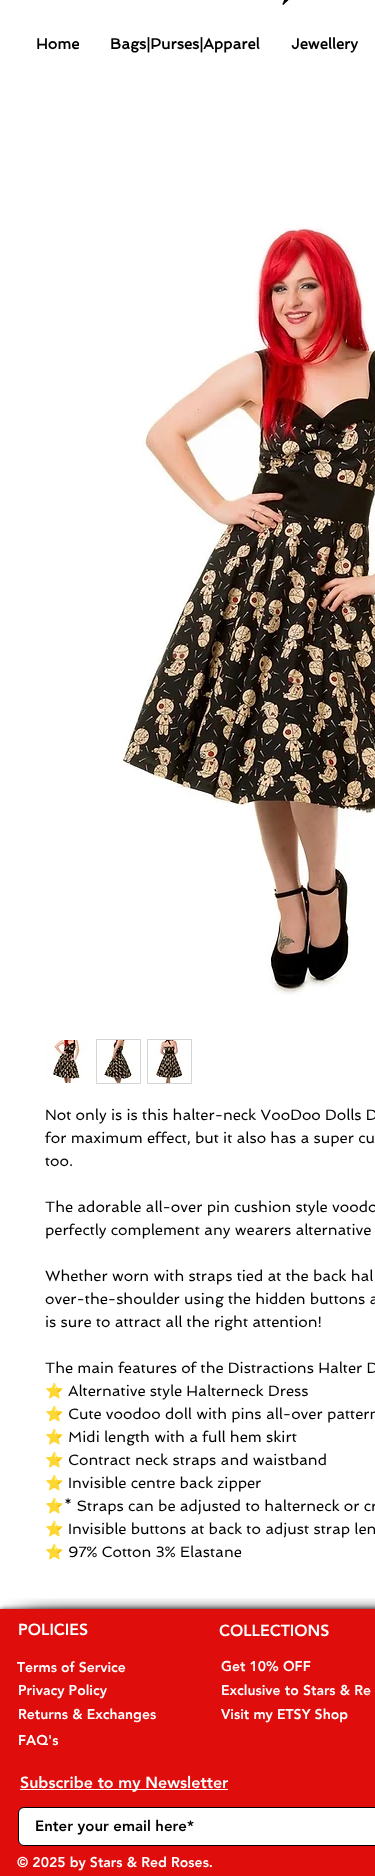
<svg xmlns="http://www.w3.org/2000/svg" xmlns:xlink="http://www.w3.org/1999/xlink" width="375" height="1876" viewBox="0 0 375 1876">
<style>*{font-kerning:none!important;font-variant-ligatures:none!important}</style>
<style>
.cls-1{font:bold 15px Spinnaker;fill:#000000}
.cls-2{font:15px Spinnaker;fill:#000000}
.cls-3{font:15px Noto Color Emoji;fill:#000000}
.cls-4{font:900 16px 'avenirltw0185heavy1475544';fill:#ffffff}
.cls-5{font:900 14px 'avenirltw0185heavy1475544';fill:#ffffff}
.cls-6{font:900 15px 'avenirltw0185heavy1475544';fill:#000000}
</style>
<rect width="100%" height="100%" fill="#ffffff"/>
<image xlink:href="image0.png" x="281" y="0" width="10" height="5"/>
<image xlink:href="image1.png" x="122" y="227" width="253" height="768"/>
<image xlink:href="image2.png" x="46" y="1040" width="43" height="43"/>
<rect fill="#d5d5d5" x="96" y="1039" width="45" height="45"/>
<image xlink:href="image3.png" x="97" y="1040" width="43" height="43"/>
<rect fill="#d5d5d5" x="147" y="1039" width="45" height="45"/>
<image xlink:href="image4.png" x="148" y="1040" width="43" height="43"/>
<rect fill="#000000" fill-opacity="0.7" filter="blur(2.5px)" x="0" y="1609" width="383" height="267"/>
<rect fill="#e00d0d" x="0" y="1609" width="375" height="267"/>
<image xlink:href="image5.png" x="3" y="1598" width="97" height="11"/>
<image xlink:href="image6.png" x="100" y="1598" width="275" height="11"/>
<rect fill="#ffffff" x="20" y="1789" width="208" height="1"/>
<rect fill="#ffffff" stroke="#000000" x="18.5" y="1807.5" width="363" height="38" rx="5.5"/>
<text class="cls-1" x="36" y="49">Home</text>
<text class="cls-1" x="110" y="49">Bags|Purses|Apparel</text>
<text class="cls-1" x="291" y="49">Jewellery</text>
<text class="cls-2"><tspan x="45" y="1120">Not only is is this halter-neck VooDoo Dolls D</tspan><tspan x="45" y="1143">for maximum effect, but it also has a super cu</tspan><tspan x="45" y="1166">too.</tspan></text>
<text class="cls-2"><tspan x="45" y="1212">The adorable all-over pin cushion style voodo</tspan><tspan x="45" y="1235">perfectly complement any wearers alternative</tspan></text>
<text class="cls-2"><tspan x="45" y="1281">Whether worn with straps tied at the back hal</tspan><tspan x="45" y="1304">over-the-shoulder using the hidden buttons a</tspan><tspan x="45" y="1327">is sure to attract all the right attention!</tspan></text>
<text class="cls-2" x="45" y="1373">The main features of the Distractions Halter D</text>
<text class="cls-3" x="45" y="1396">⭐</text>
<text class="cls-2" x="68" y="1396">Alternative style Halterneck Dress</text>
<text class="cls-3" x="45" y="1419">⭐</text>
<text class="cls-2" x="68" y="1419">Cute voodoo doll with pins all-over pattern</text>
<text class="cls-3" x="45" y="1442">⭐</text>
<text class="cls-2" x="68" y="1442">Midi length with a full hem skirt</text>
<text class="cls-3" x="45" y="1465">⭐</text>
<text class="cls-2" x="68" y="1465">Contract neck straps and waistband</text>
<text class="cls-3" x="45" y="1488">⭐</text>
<text class="cls-2" x="68" y="1488">Invisible centre back zipper</text>
<text class="cls-3" x="45" y="1511">⭐</text>
<text class="cls-2" x="64" y="1511">* Straps can be adjusted to halterneck or cr</text>
<text class="cls-3" x="45" y="1534">⭐</text>
<text class="cls-2" x="68" y="1534">Invisible buttons at back to adjust strap len</text>
<text class="cls-3" x="45" y="1557">⭐</text>
<text class="cls-2" x="68" y="1557">97% Cotton 3% Elastane</text>
<text class="cls-4" x="18" y="1635">POLICIES</text>
<text class="cls-4" x="219" y="1636">COLLECTIONS</text>
<text class="cls-5" x="17" y="1672">Terms of Service</text>
<text class="cls-5" x="221" y="1671">Get 10% OFF</text>
<text class="cls-5" x="18" y="1695">Privacy Policy</text>
<text class="cls-5" x="221" y="1695">Exclusive to Stars &amp; Re</text>
<text class="cls-5" x="18" y="1719">Returns &amp; Exchanges</text>
<text class="cls-5" x="221" y="1719">Visit my ETSY Shop</text>
<text class="cls-5" x="18" y="1745">FAQ's</text>
<text class="cls-4" x="20" y="1788">Subscribe to my Newsletter</text>
<text class="cls-6" x="35" y="1831">Enter your email here*</text>
<text class="cls-5" x="17" y="1867">© 2025 by Stars &amp; Red Roses.</text>
</svg>
